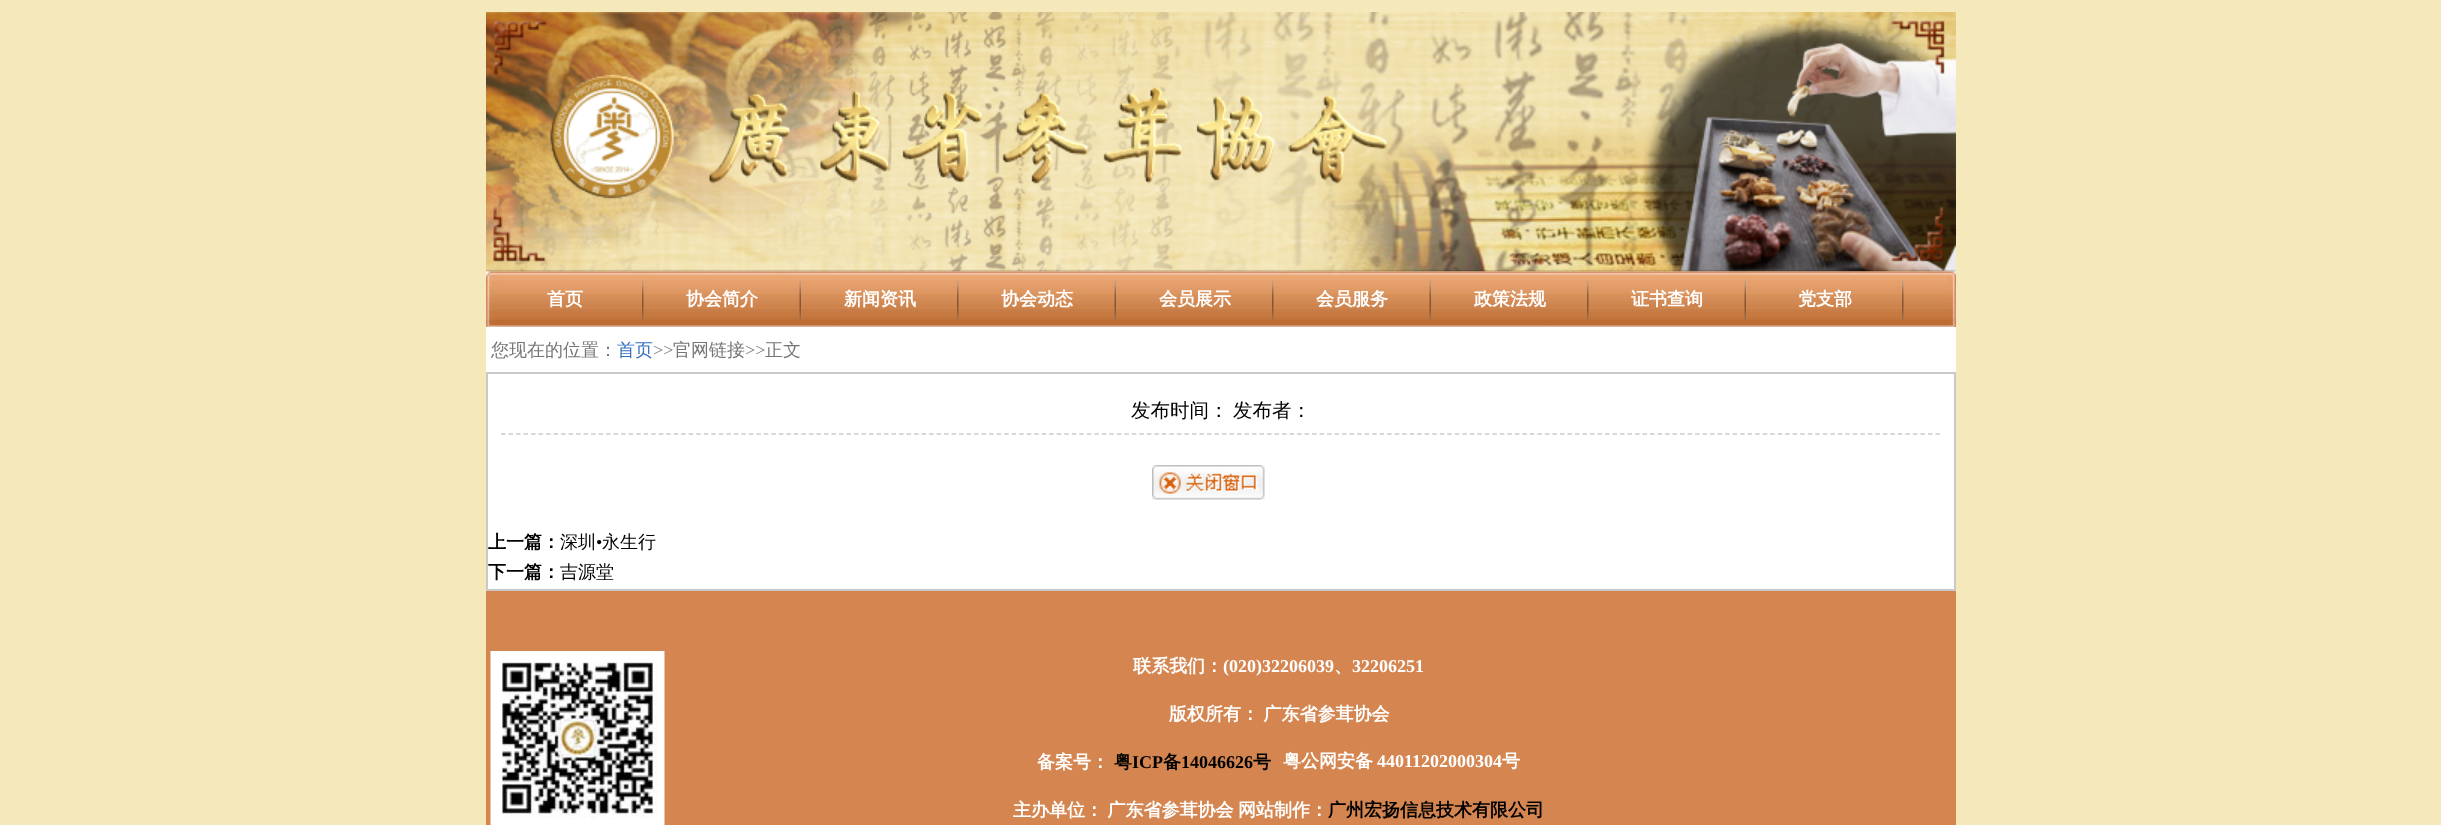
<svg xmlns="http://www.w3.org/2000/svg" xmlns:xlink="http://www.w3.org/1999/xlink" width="2441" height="825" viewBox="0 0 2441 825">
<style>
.cls-1{font:bold 18px WenQuanYi Zen Hei;fill:#ffffff}
.cls-2{font:500 18px WenQuanYi Zen Hei;fill:#767677}
.cls-3{font:500 18px WenQuanYi Zen Hei;fill:#3272bc}
.cls-4{font:18px Liberation Serif;fill:#767677}
.cls-5{font:500 19.5px WenQuanYi Zen Hei;fill:#000000}
.cls-6{font:bold 18px WenQuanYi Zen Hei;fill:#000000}
.cls-7{font:500 18px WenQuanYi Zen Hei;fill:#000000}
.cls-8{font:18px Liberation Serif;fill:#000000}
.cls-9{font:bold 18px Liberation Serif;fill:#ffffff}
.cls-10{font:bold 18px Liberation Serif;fill:#000000}
</style>
<rect width="100%" height="100%" fill="#f5e8bb"/>
<image xlink:href="image0.png" x="486" y="12" width="1470" height="260"/>
<image xlink:href="image1.png" x="486" y="271" width="1470" height="56"/>
<image xlink:href="image2.png" x="642" y="280" width="2" height="40"/>
<image xlink:href="image3.png" x="799" y="280" width="2" height="40"/>
<image xlink:href="image2.png" x="957" y="280" width="2" height="40"/>
<image xlink:href="image3.png" x="1114" y="280" width="2" height="40"/>
<image xlink:href="image2.png" x="1272" y="280" width="2" height="40"/>
<image xlink:href="image3.png" x="1429" y="280" width="2" height="40"/>
<image xlink:href="image2.png" x="1587" y="280" width="2" height="40"/>
<image xlink:href="image3.png" x="1744" y="280" width="2" height="40"/>
<image xlink:href="image2.png" x="1902" y="280" width="2" height="40"/>
<rect fill="#ffffff" x="486" y="327" width="1470" height="262"/>
<rect fill="none" stroke="#c9c9c9" stroke-width="2" x="487" y="373" width="1468" height="217"/>
<path fill="none" stroke="#cccccc" stroke-width="1.5" stroke-dasharray="4.5 3.01" d="M501 434H1941"/>
<image xlink:href="image4.png" x="1152" y="465" width="113" height="35"/>
<rect fill="#d48550" x="486" y="591" width="1470" height="234"/>
<image xlink:href="image5.png" x="490" y="651" width="175" height="174"/>
<text class="cls-1" x="547" y="305">首页</text>
<text class="cls-1" x="686" y="305">协会简介</text>
<text class="cls-1" x="844" y="305">新闻资讯</text>
<text class="cls-1" x="1001" y="305">协会动态</text>
<text class="cls-1" x="1159" y="305">会员展示</text>
<text class="cls-1" x="1316" y="305">会员服务</text>
<text class="cls-1" x="1474" y="305">政策法规</text>
<text class="cls-1" x="1631" y="305">证书查询</text>
<text class="cls-1" x="1798" y="305">党支部</text>
<text class="cls-2" x="491" y="356">您现在的位置：</text>
<text class="cls-3" x="617" y="356">首页</text>
<text class="cls-4" x="653" y="356">&gt;&gt;</text>
<text class="cls-2" x="673" y="356">官网链接</text>
<text class="cls-4" x="745" y="356">&gt;&gt;</text>
<text class="cls-2" x="765" y="356">正文</text>
<text class="cls-5" x="1131" y="417">发布时间：</text>
<text class="cls-5" x="1233" y="417">发布者：</text>
<text class="cls-6" x="488" y="548">上一篇：</text>
<text class="cls-7" x="560" y="548">深圳</text>
<text class="cls-8" x="596" y="548">•</text>
<text class="cls-7" x="602" y="548">永生行</text>
<text class="cls-6" x="488" y="578">下一篇：</text>
<text class="cls-7" x="560" y="578">吉源堂</text>
<text class="cls-1" x="1133" y="672">联系我们：</text>
<text class="cls-9" x="1223" y="672">(020)32206039</text>
<text class="cls-1" x="1334" y="672">、</text>
<text class="cls-9" x="1352" y="672">32206251</text>
<text class="cls-1" x="1169" y="720" word-spacing="-1">版权所有： 广东省参茸协会</text>
<text class="cls-1" x="1037" y="768">备案号：</text>
<text class="cls-6" x="1114" y="768">粤</text>
<text class="cls-10" x="1132" y="768">ICP</text>
<text class="cls-6" x="1163" y="768">备</text>
<text class="cls-10" x="1181" y="768">14046626</text>
<text class="cls-6" x="1253" y="768">号</text>
<text class="cls-1" x="1283" y="767">粤公网安备</text>
<text class="cls-9" x="1377" y="767">44011202000304</text>
<text class="cls-1" x="1502" y="767">号</text>
<text class="cls-1" x="1013" y="816" word-spacing="-1">主办单位： 广东省参茸协会</text>
<text class="cls-1" x="1238" y="816">网站制作：</text>
<text class="cls-6" x="1328" y="816">广州宏扬信息技术有限公司</text>
</svg>
